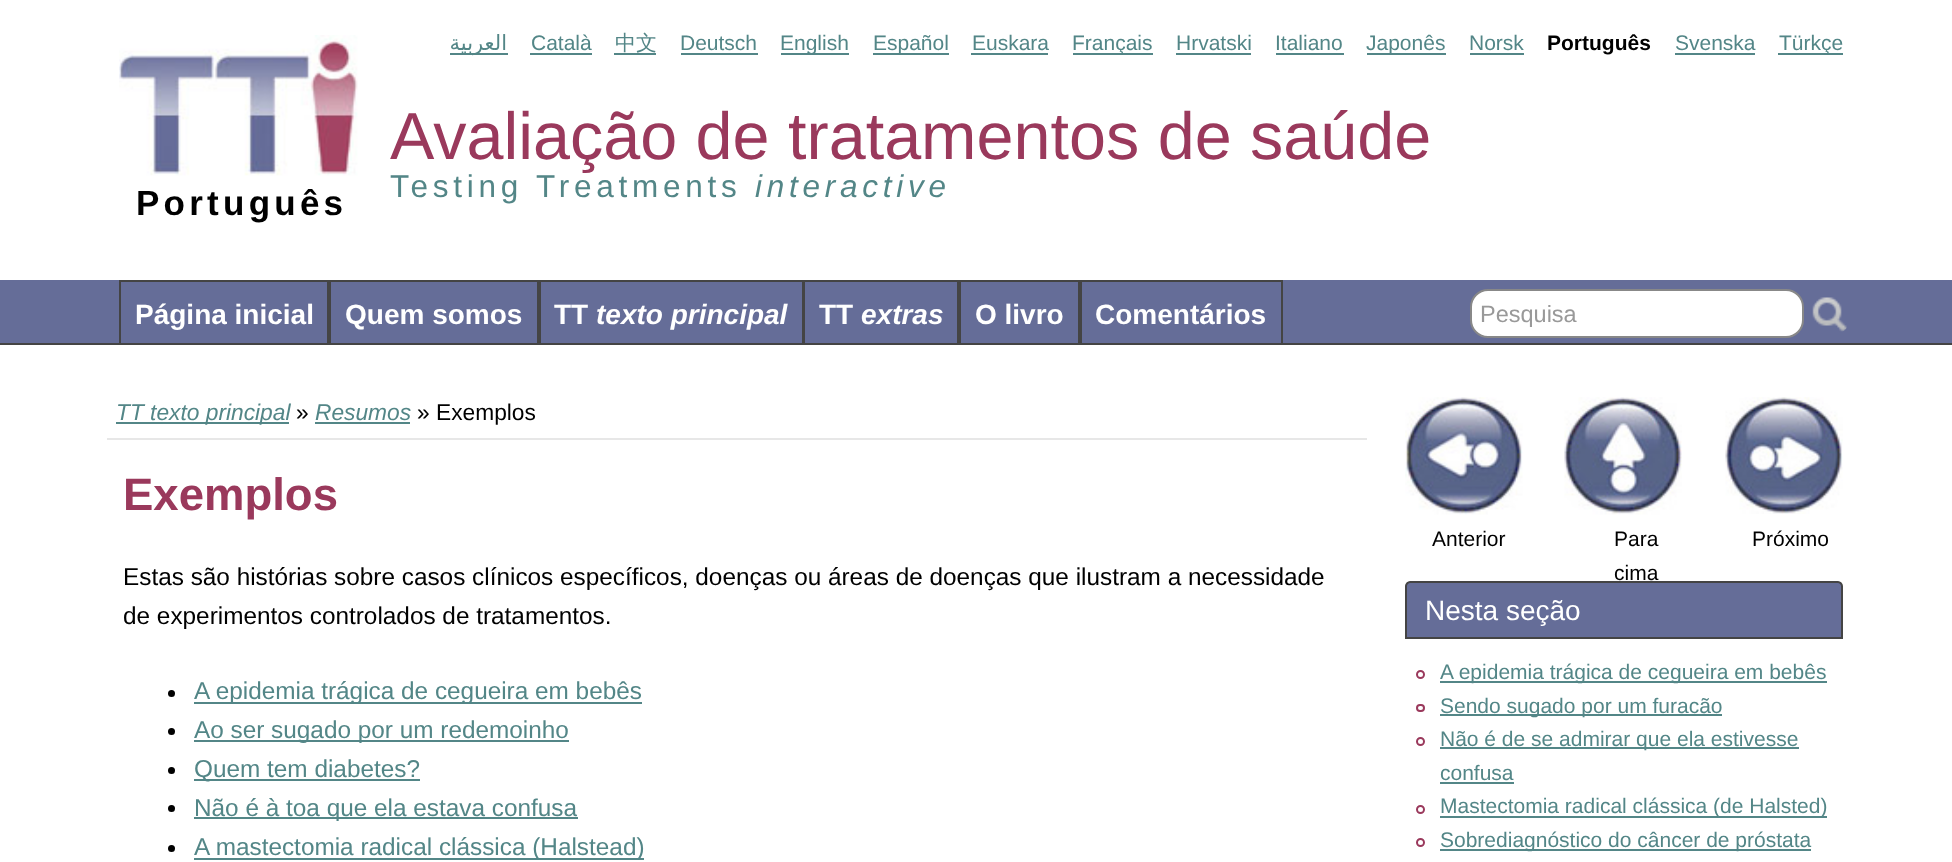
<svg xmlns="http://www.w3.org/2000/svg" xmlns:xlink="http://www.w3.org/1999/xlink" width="1952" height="862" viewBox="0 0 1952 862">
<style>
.cls-1{font:21px DejaVu Sans;direction:rtl;fill:#538687}
.cls-2{font:21px Liberation Sans;fill:#538687}
.cls-3{font:500 21px WenQuanYi Zen Hei;fill:#538687}
.cls-4{font:bold 21px Liberation Sans;fill:#000000}
.cls-5{font:bold 35px Liberation Sans;letter-spacing:4.25px;fill:#000000}
.cls-6{font:66.5px Liberation Sans;fill:#9a395c}
.cls-7{font:31.5px Liberation Sans;letter-spacing:4.75px;fill:#538687}
.cls-8{font:italic 31.5px Liberation Sans;letter-spacing:4.75px;fill:#538687}
.cls-9{font:bold 28px Liberation Sans;fill:#ffffff}
.cls-10{font:italic bold 28px Liberation Sans;fill:#ffffff}
.cls-11{font:23.5px Liberation Sans;fill:#999999}
.cls-12{font:italic 22.75px Liberation Sans;fill:#538687}
.cls-13{font:22.75px Liberation Sans;fill:#000000}
.cls-14{font:bold 45.5px Liberation Sans;fill:#9a395c}
.cls-15{font:24.35px Liberation Sans;fill:#000000}
.cls-16{font:24.35px Liberation Sans;fill:#538687}
.cls-17{font:21px Liberation Sans;fill:#000000}
.cls-18{font:28px Liberation Sans;fill:#ffffff}
</style>
<rect width="100%" height="100%" fill="#ffffff"/>
<rect fill="#538687" x="450" y="53" width="58" height="2"/>
<rect fill="#538687" x="530" y="53" width="62" height="2"/>
<rect fill="#538687" x="614" y="53" width="42" height="2"/>
<rect fill="#538687" x="681" y="53" width="77" height="2"/>
<rect fill="#538687" x="781" y="53" width="68" height="2"/>
<rect fill="#538687" x="873" y="53" width="76" height="2"/>
<rect fill="#538687" x="971" y="53" width="77" height="2"/>
<rect fill="#538687" x="1073" y="53" width="80" height="2"/>
<rect fill="#538687" x="1176" y="53" width="75" height="2"/>
<rect fill="#538687" x="1276" y="53" width="68" height="2"/>
<rect fill="#538687" x="1367" y="53" width="79" height="2"/>
<rect fill="#538687" x="1470" y="53" width="54" height="2"/>
<rect fill="#538687" x="1675" y="53" width="80" height="2"/>
<rect fill="#538687" x="1778" y="53" width="65" height="2"/>
<image xlink:href="image0.png" x="119" y="35" width="239" height="141"/>
<rect fill="#656d98" x="0" y="280" width="1952" height="63"/>
<rect fill="#444444" x="0" y="343" width="1952" height="2"/>
<rect fill="none" stroke="#444444" stroke-width="2" x="120" y="281" width="208" height="63"/>
<rect fill="none" stroke="#444444" stroke-width="2" x="330" y="281" width="208" height="63"/>
<rect fill="none" stroke="#444444" stroke-width="2" x="540" y="281" width="262" height="63"/>
<rect fill="#656d98" x="801" y="282" width="1" height="61"/>
<rect fill="none" stroke="#444444" stroke-width="2" x="804" y="281" width="154" height="63"/>
<rect fill="none" stroke="#444444" stroke-width="2" x="960" y="281" width="119" height="63"/>
<rect fill="none" stroke="#444444" stroke-width="2" x="1081" y="281" width="201" height="63"/>
<rect fill="#ffffff" stroke="#888888" stroke-width="2" x="1471" y="290" width="332" height="47" rx="17"/>
<image xlink:href="image1.png" x="1812" y="297" width="35" height="35"/>
<rect fill="#e7e7e7" x="107" y="438" width="1260" height="2"/>
<rect fill="#538687" x="116" y="422" width="173" height="2"/>
<rect fill="#538687" x="315" y="422" width="95" height="2"/>
<circle fill="#000000" cx="171.5" cy="693.5" r="3.5"/>
<rect fill="#538687" x="194" y="702" width="448" height="2"/>
<circle fill="#000000" cx="171.5" cy="731.5" r="3.5"/>
<rect fill="#538687" x="194" y="740" width="375" height="2"/>
<circle fill="#000000" cx="171.5" cy="770.5" r="3.5"/>
<rect fill="#538687" x="194" y="779" width="226" height="2"/>
<circle fill="#000000" cx="171.5" cy="808.5" r="3.5"/>
<rect fill="#538687" x="194" y="817" width="384" height="2"/>
<circle fill="#000000" cx="171.5" cy="848.5" r="3.5"/>
<rect fill="#538687" x="194" y="858" width="450" height="2"/>
<image xlink:href="image2.png" x="1405" y="397" width="118" height="118"/>
<image xlink:href="image3.png" x="1564" y="397" width="118" height="118"/>
<image xlink:href="image4.png" x="1725" y="397" width="118" height="117"/>
<path fill="#656d98" stroke="#444444" stroke-width="2" d="M1410 582H1838C1840 582 1842 584 1842 586V638H1406V586C1406 584 1408 582 1410 582Z"/>
<circle fill="none" stroke="#9a395c" stroke-width="2" cx="1420.5" cy="674.5" r="3.5"/>
<rect fill="#538687" x="1440" y="681" width="387" height="2"/>
<rect fill="none" stroke="#9a395c" stroke-width="2" x="1417" y="705" width="7" height="6" rx="3"/>
<rect fill="#538687" x="1440" y="714" width="282" height="2"/>
<circle fill="none" stroke="#9a395c" stroke-width="2" cx="1420.5" cy="741.5" r="3.5"/>
<rect fill="#538687" x="1440" y="747" width="359" height="2"/>
<rect fill="#538687" x="1440" y="782" width="74" height="2"/>
<circle fill="none" stroke="#9a395c" stroke-width="2" cx="1420.5" cy="809.5" r="3.5"/>
<rect fill="#538687" x="1440" y="816" width="387" height="2"/>
<circle fill="none" stroke="#9a395c" stroke-width="2" cx="1420.5" cy="842.5" r="3.5"/>
<rect fill="#538687" x="1440" y="849" width="371" height="2"/>
<text class="cls-1" x="507" y="50">العربية</text>
<text class="cls-2" x="531" y="50">Català</text>
<text class="cls-3" x="615" y="50">中文</text>
<text class="cls-2" x="680" y="50">Deutsch</text>
<text class="cls-2" x="780" y="50">English</text>
<text class="cls-2" x="873" y="50">Español</text>
<text class="cls-2" x="972" y="50">Euskara</text>
<text class="cls-2" x="1072" y="50">Français</text>
<text class="cls-2" x="1176" y="50">Hrvatski</text>
<text class="cls-2" x="1275" y="50">Italiano</text>
<text class="cls-2" x="1366" y="50">Japonês</text>
<text class="cls-2" x="1469" y="50">Norsk</text>
<text class="cls-4" x="1547" y="50">Português</text>
<text class="cls-2" x="1675" y="50">Svenska</text>
<text class="cls-2" x="1779" y="50">Türkçe</text>
<text class="cls-5" x="136" y="215">Português</text>
<text class="cls-6" x="390" y="159">Avaliação de tratamentos de saúde</text>
<text class="cls-7" x="390" y="197">Testing Treatments</text>
<text class="cls-8" x="755" y="197">interactive</text>
<text class="cls-9" x="135" y="324">Página inicial</text>
<text class="cls-9" x="345" y="324">Quem somos</text>
<text class="cls-9" x="554" y="324">TT</text>
<text class="cls-10" x="596" y="324">texto principal</text>
<text class="cls-9" x="819" y="324">TT</text>
<text class="cls-10" x="861" y="324">extras</text>
<text class="cls-9" x="975" y="324">O livro</text>
<text class="cls-9" x="1095" y="324">Comentários</text>
<text class="cls-11" x="1480" y="322">Pesquisa</text>
<text class="cls-12" x="116" y="420">TT texto principal</text>
<text class="cls-13" x="296" y="420">»</text>
<text class="cls-12" x="315" y="420">Resumos</text>
<text class="cls-13" x="417" y="420">» Exemplos</text>
<text class="cls-14" x="123" y="510">Exemplos</text>
<text class="cls-15"><tspan x="123" y="585">Estas são histórias sobre casos clínicos específicos, doenças ou áreas de doenças que ilustram a necessidade</tspan><tspan x="123" y="624">de experimentos controlados de tratamentos.</tspan></text>
<text class="cls-16"><tspan x="194" y="699">A epidemia trágica de cegueira em bebês</tspan><tspan x="194" y="738">Ao ser sugado por um redemoinho</tspan><tspan x="194" y="777">Quem tem diabetes?</tspan><tspan x="194" y="816">Não é à toa que ela estava confusa</tspan><tspan x="194" y="855">A mastectomia radical clássica (Halstead)</tspan></text>
<text class="cls-17" x="1432" y="546">Anterior</text>
<text class="cls-17"><tspan x="1614" y="546">Para</tspan><tspan x="1614" y="580">cima</tspan></text>
<text class="cls-17" x="1752" y="546">Próximo</text>
<text class="cls-18" x="1425" y="620">Nesta seção</text>
<text class="cls-2"><tspan x="1440" y="679">A epidemia trágica de cegueira em bebês</tspan><tspan x="1440" y="713">Sendo sugado por um furacão</tspan><tspan x="1440" y="746">Não é de se admirar que ela estivesse</tspan><tspan x="1440" y="780">confusa</tspan><tspan x="1440" y="813">Mastectomia radical clássica (de Halsted)</tspan><tspan x="1440" y="847">Sobrediagnóstico do câncer de próstata</tspan></text>
</svg>
